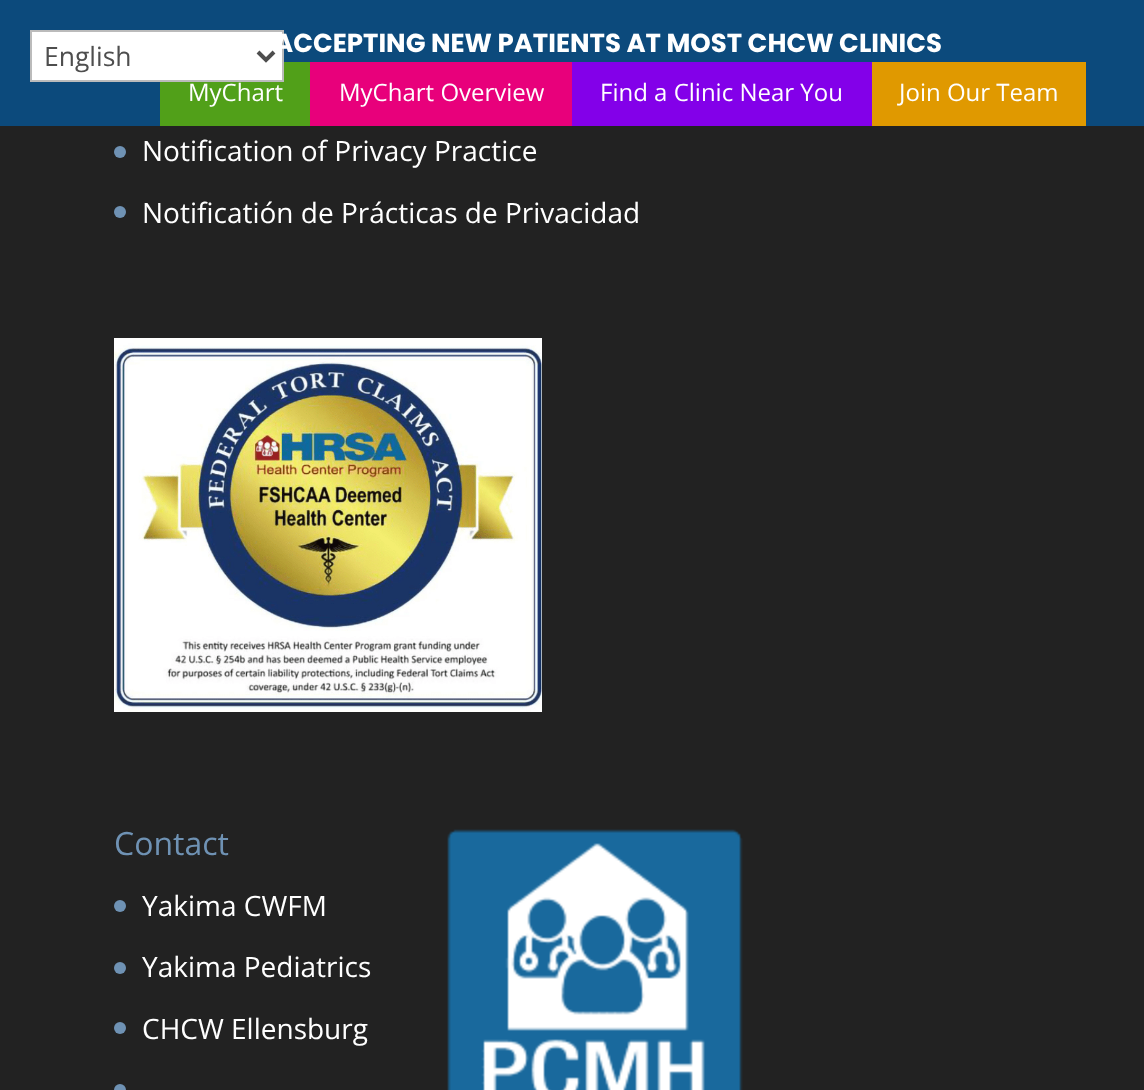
<svg xmlns="http://www.w3.org/2000/svg" xmlns:xlink="http://www.w3.org/1999/xlink" width="1144" height="1090" viewBox="0 0 1144 1090">
<style>
.cls-1{font:26.5px Open Sans;fill:#4e4e4e}
.cls-2{font:bold 26px Poppins;fill:#ffffff}
.cls-3{font:24px Open Sans;fill:#ffffff}
.cls-4{font:28px Open Sans;fill:#ffffff}
.cls-5{font:32px Open Sans;fill:#6f92b4}
</style>
<rect width="100%" height="100%" fill="#222222"/>
<rect fill="#0c4a7c" x="0" y="0" width="1144" height="126"/>
<rect fill="#51a019" x="160" y="62" width="150" height="64"/>
<rect fill="#ffffff" stroke="#bbbbbb" stroke-width="2" x="31" y="31" width="252" height="50"/>
<rect fill="#e8007b" x="310" y="62" width="262" height="64"/>
<rect fill="#8300e9" x="572" y="62" width="300" height="64"/>
<rect fill="#e09900" x="872" y="62" width="214" height="64"/>
<circle fill="#6f92b4" cx="120" cy="152" r="6"/>
<circle fill="#6f92b4" cx="120" cy="212" r="6"/>
<image xlink:href="image0.png" x="114" y="338" width="428" height="374"/>
<circle fill="#6f92b4" cx="120" cy="906" r="6"/>
<circle fill="#6f92b4" cx="120" cy="968" r="6"/>
<circle fill="#6f92b4" cx="120" cy="1028" r="6"/>
<circle fill="#6f92b4" cx="120" cy="1090" r="6"/>
<image xlink:href="image1.png" x="447" y="829" width="296" height="261"/>
<text class="cls-1" x="44" y="66">English</text>
<text class="cls-2" x="274" y="52">ACCEPTING NEW PATIENTS AT MOST CHCW CLINICS</text>
<path fill="none" stroke="#4e4e4e" stroke-width="4" d="M258 52L266 60L274 52"/>
<text class="cls-3" x="188" y="101">MyChart</text>
<text class="cls-3" x="339" y="101">MyChart Overview</text>
<text class="cls-3" x="600" y="101">Find a Clinic Near You</text>
<text class="cls-3" x="899" y="101">Join Our Team</text>
<text class="cls-4" x="142" y="161">Notification of Privacy Practice</text>
<text class="cls-4" x="142" y="223">Notificatión de Prácticas de Privacidad</text>
<text class="cls-5" x="114" y="855">Contact</text>
<text class="cls-4" x="142" y="916">Yakima CWFM</text>
<text class="cls-4" x="142" y="977">Yakima Pediatrics</text>
<text class="cls-4" x="142" y="1039">CHCW Ellensburg</text>
</svg>
